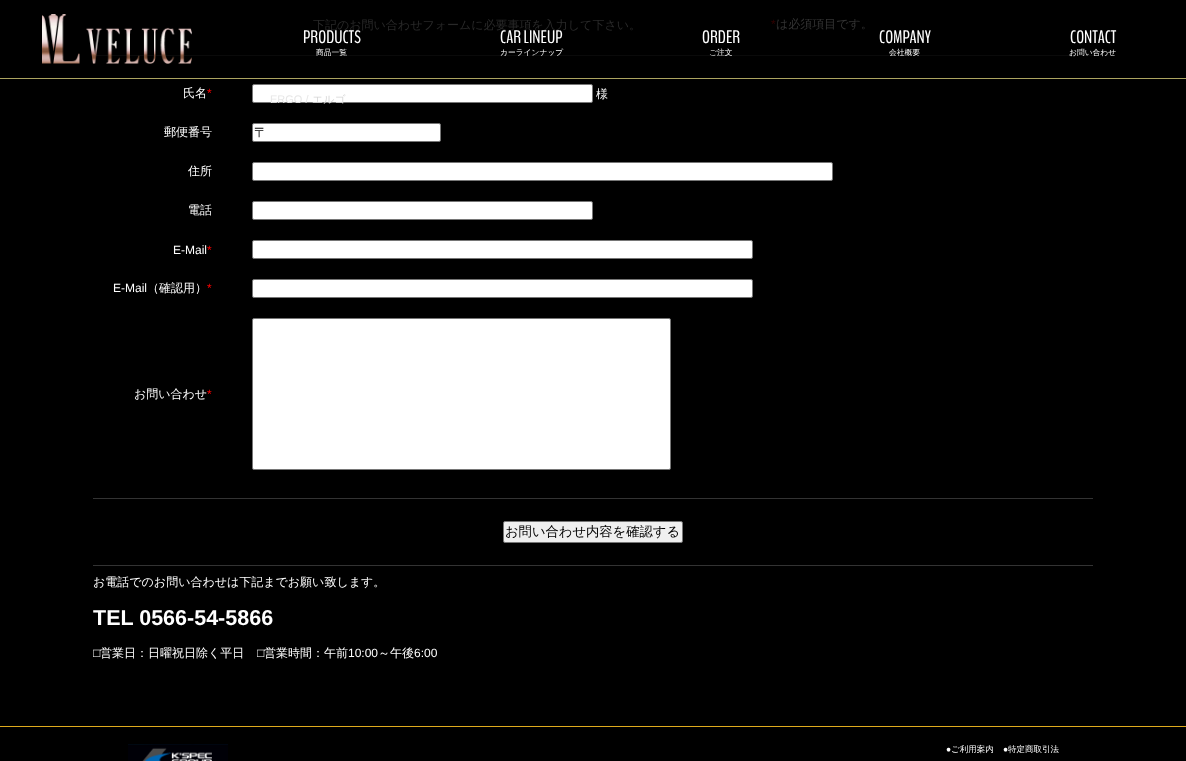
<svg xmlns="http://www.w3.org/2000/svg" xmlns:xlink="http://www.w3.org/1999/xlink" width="1186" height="761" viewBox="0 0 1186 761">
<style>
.cls-1{font:500 12px WenQuanYi Zen Hei;fill:#292929}
.cls-2{font:12px Liberation Sans;fill:#330000}
.cls-3{font:500 12px WenQuanYi Zen Hei;fill:#333333}
.cls-4{font:500 12px WenQuanYi Zen Hei;fill:#ffffff}
.cls-5{font:12px Liberation Sans;fill:#ff0000}
.cls-6{font:500 13.3px WenQuanYi Zen Hei;fill:#000000}
.cls-7{font:12px Liberation Sans;fill:#ffffff}
.cls-8{font:bold 21.5px Liberation Sans;fill:#ffffff}
.cls-9{font:8.5px Liberation Sans;fill:#ffffff}
.cls-10{font:500 8.5px WenQuanYi Zen Hei;fill:#ffffff}
.cls-11{font:18px BenchNine;fill:#ffffff}
.cls-12{font:500 7.75px WenQuanYi Zen Hei;fill:#ffffff}
.cls-13{font:11px Liberation Sans;fill:#e7e7e7}
.cls-14{font:500 11px WenQuanYi Zen Hei;fill:#d7d7d7}
</style>
<rect width="100%" height="100%" fill="#000000"/>
<rect fill="#0a0a0a" x="93" y="55" width="1000" height="1"/>
<rect fill="#ffffff" stroke="#767676" x="252.5" y="84.5" width="340" height="18" rx="1.5"/>
<rect fill="#ffffff" stroke="#767676" x="252.5" y="123.5" width="188" height="18" rx="1.5"/>
<rect fill="#ffffff" stroke="#767676" x="252.5" y="162.5" width="580" height="18" rx="1.5"/>
<rect fill="#ffffff" stroke="#767676" x="252.5" y="201.5" width="340" height="18" rx="1.5"/>
<rect fill="#ffffff" stroke="#767676" x="252.5" y="240.5" width="500" height="18" rx="1.5"/>
<rect fill="#ffffff" stroke="#767676" x="252.5" y="279.5" width="500" height="18" rx="1.5"/>
<rect fill="#ffffff" stroke="#767676" x="252.5" y="318.5" width="418" height="151" rx="1.5"/>
<rect fill="#333333" x="93" y="498" width="1000" height="1"/>
<rect fill="#efefef" stroke="#767676" x="503.5" y="521.5" width="179" height="21" rx="1.5"/>
<rect fill="#333333" x="93" y="565" width="1000" height="1"/>
<rect fill="#deaa1d" x="0" y="726" width="1186" height="1"/>
<image xlink:href="image0.png" x="128" y="744" width="100" height="17"/>
<rect fill="#aba460" x="0" y="78" width="1186" height="1"/>
<image xlink:href="image1.png" x="42" y="14" width="150" height="50"/>
<text class="cls-1" x="313" y="29">下記のお問い合わせフォームに必要事項を入力して下さい。</text>
<text class="cls-2" x="771" y="28">*</text>
<text class="cls-3" x="776" y="28">は必須項目です。</text>
<text class="cls-4" x="183" y="97">氏名</text>
<text class="cls-5" x="207" y="97">*</text>
<text class="cls-4" x="596" y="98">様</text>
<text class="cls-4" x="164" y="136">郵便番号</text>
<text class="cls-6" x="254" y="137">〒</text>
<text class="cls-4" x="188" y="175">住所</text>
<text class="cls-4" x="188" y="214">電話</text>
<text class="cls-7" x="173" y="254">E-Mail</text>
<text class="cls-5" x="207" y="254">*</text>
<text class="cls-7" x="113" y="292">E-Mail</text>
<text class="cls-4" x="147" y="292">（確認用）</text>
<text class="cls-5" x="207" y="292">*</text>
<text class="cls-4" x="134" y="398">お問い合わせ</text>
<text class="cls-5" x="207" y="398">*</text>
<text class="cls-6" x="505" y="536">お問い合わせ内容を確認する</text>
<text class="cls-4" x="93" y="586">お電話でのお問い合わせは下記までお願い致します。</text>
<text class="cls-8" x="93" y="625">TEL 0566-54-5866</text>
<text class="cls-7" x="93" y="657">□</text>
<text class="cls-4" x="100" y="657">営業日：日曜祝日除く平日</text>
<text class="cls-7" x="257" y="657">□</text>
<text class="cls-4" x="264" y="657">営業時間：午前</text>
<text class="cls-7" x="348" y="657">10:00</text>
<text class="cls-4" x="378" y="657">～午後</text>
<text class="cls-7" x="414" y="657">6:00</text>
<text class="cls-9" x="946" y="752">●</text>
<text class="cls-10" x="951" y="752">ご利用案内</text>
<text class="cls-9" x="1003" y="752">●</text>
<text class="cls-10" x="1008" y="752">特定商取引法</text>
<text class="cls-11" x="303" y="43">PRODUCTS</text>
<text class="cls-12" x="316" y="55">商品一覧</text>
<text class="cls-13" x="270" y="103">ERGO /</text>
<text class="cls-14" x="312" y="103">エルゴ</text>
<text class="cls-11" x="500" y="43">CAR LINEUP</text>
<text class="cls-12" x="500" y="55">カーラインナップ</text>
<text class="cls-11" x="702" y="43">ORDER</text>
<text class="cls-12" x="709" y="55">ご注文</text>
<text class="cls-11" x="879" y="43">COMPANY</text>
<text class="cls-12" x="889" y="55">会社概要</text>
<text class="cls-11" x="1070" y="43">CONTACT</text>
<text class="cls-12" x="1069" y="55">お問い合わせ</text>
</svg>
